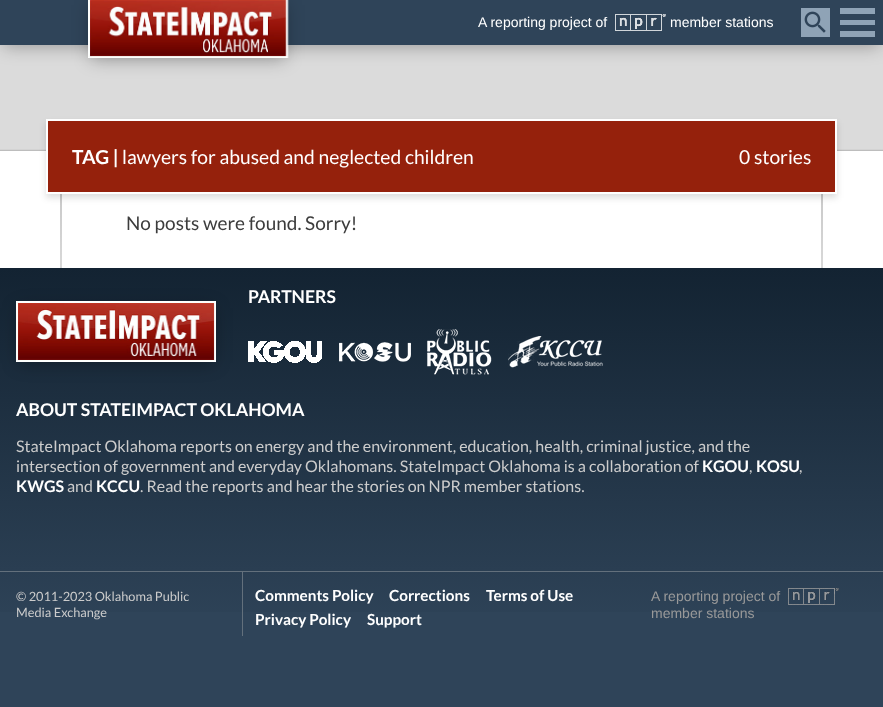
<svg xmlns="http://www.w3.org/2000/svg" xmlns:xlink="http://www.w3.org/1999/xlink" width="883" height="707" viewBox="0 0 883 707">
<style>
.cls-1{font:14px Liberation Sans;fill:#ffffff}
.cls-2{font:bold 19.25px Lato;fill:#ffffff}
.cls-3{font:19.25px Lato;fill:#ffffff}
.cls-4{font:19px Lato;fill:#3c3c3c}
.cls-5{font:bold 17.6px Lato;fill:#ffffff}
.cls-6{font:16px Lato;fill:#cccccc}
.cls-7{font:bold 16px Lato;fill:#ffffff}
.cls-8{font:12.75px Lato;fill:#cccccc}
.cls-9{font:bold 15.25px Lato;fill:#ffffff}
.cls-10{font:14px Liberation Sans;fill:#999999}
</style>
<defs>
<linearGradient id="g1" gradientUnits="userSpaceOnUse" x1="61" y1="135" x2="61" y2="455"><stop offset="0" stop-color="#bdbdbd"/><stop offset="1" stop-color="#bdbdbd" stop-opacity="0"/></linearGradient>
<linearGradient id="g2" gradientUnits="userSpaceOnUse" x1="822" y1="135" x2="822" y2="455"><stop offset="0" stop-color="#bdbdbd"/><stop offset="1" stop-color="#bdbdbd" stop-opacity="0"/></linearGradient>
<linearGradient id="g3" gradientUnits="userSpaceOnUse" x1="442" y1="268" x2="442" y2="636"><stop offset="0" stop-color="#132332"/><stop offset="1" stop-color="#2f4459"/></linearGradient>
</defs>
<rect width="100%" height="100%" fill="#2f4459"/>
<rect fill="#ffffff" x="0" y="151" width="883" height="117"/>
<rect fill="#dbdbdb" x="0" y="45" width="883" height="104"/>
<rect fill="#000000" fill-opacity="0.32" filter="blur(9px)" x="3" y="7" width="877" height="39"/>
<rect fill="#2f4459" x="0" y="0" width="883" height="45"/>
<rect fill="#000000" fill-opacity="0.32" filter="blur(9px)" x="91" y="5" width="194" height="54"/>
<image xlink:href="image0.png" x="88" y="0" width="201" height="58"/>
<image xlink:href="image1.png" x="615" y="14" width="51" height="17"/>
<rect fill="#8fa3b6" x="801" y="8" width="29" height="29"/>
<image xlink:href="image2.png" x="804" y="11" width="22" height="22"/>
<rect fill="#8fa3b6" x="840" y="8" width="35" height="6"/>
<rect fill="#8fa3b6" x="840" y="20" width="35" height="5"/>
<rect fill="#8fa3b6" x="840" y="31" width="35" height="6"/>
<rect fill="#d3d3d3" x="0" y="149" width="883" height="1"/>
<rect fill="#bdbdbd" x="0" y="150" width="883" height="1"/>
<rect fill="url(#g1)" x="60" y="194" width="2" height="74"/>
<rect fill="url(#g2)" x="821" y="194" width="2" height="74"/>
<rect fill="#000000" fill-opacity="0.13" filter="blur(3px)" x="46" y="123" width="791" height="75"/>
<rect fill="#95210c" stroke="#ffffff" stroke-width="2" x="47" y="120" width="789" height="73"/>
<rect fill="url(#g3)" x="0" y="268" width="883" height="344"/>
<rect fill="#000000" fill-opacity="0.32" filter="blur(9px)" x="19" y="308" width="194" height="55"/>
<image xlink:href="image3.png" x="16" y="301" width="200" height="61"/>
<image xlink:href="image4.png" x="248" y="341" width="74" height="22"/>
<image xlink:href="image5.png" x="339" y="342" width="72" height="20"/>
<image xlink:href="image6.png" x="427" y="329" width="65" height="46"/>
<image xlink:href="image7.png" x="508" y="336" width="95" height="32"/>
<rect fill="#63707c" x="0" y="571" width="883" height="1"/>
<rect fill="#63707c" x="242" y="572" width="1" height="64"/>
<image xlink:href="image8.png" x="788" y="588" width="51" height="17"/>
<text class="cls-1" x="478" y="27">A reporting project of</text>
<text class="cls-1" x="670" y="27">member stations</text>
<text class="cls-2" x="72" y="164">TAG |</text>
<text class="cls-3" x="122" y="164">lawyers for abused and neglected children</text>
<text class="cls-3" x="739" y="164">0 stories</text>
<text class="cls-4" x="126" y="230">No posts were found. Sorry!</text>
<text class="cls-5" x="248" y="303">PARTNERS</text>
<text class="cls-5" x="16" y="416">ABOUT STATEIMPACT OKLAHOMA</text>
<text class="cls-6"><tspan x="16" y="452">StateImpact Oklahoma reports on energy and the environment, education, health, criminal justice, and the</tspan><tspan x="16" y="472">intersection of government and everyday Oklahomans. StateImpact Oklahoma is a collaboration of</tspan></text>
<text class="cls-7" x="702" y="472">KGOU</text>
<text class="cls-6" x="749" y="472">,</text>
<text class="cls-7" x="756" y="472">KOSU</text>
<text class="cls-6" x="799" y="472">,</text>
<text class="cls-7" x="16" y="492">KWGS</text>
<text class="cls-6" x="67" y="492">and</text>
<text class="cls-7" x="96" y="492">KCCU</text>
<text class="cls-6" x="140" y="492">. Read the reports and hear the stories on NPR member stations.</text>
<text class="cls-8"><tspan x="16" y="601">© 2011-2023 Oklahoma Public</tspan><tspan x="16" y="617">Media Exchange</tspan></text>
<text class="cls-9" x="255" y="601">Comments Policy</text>
<text class="cls-9" x="389" y="601">Corrections</text>
<text class="cls-9" x="486" y="601">Terms of Use</text>
<text class="cls-9" x="255" y="625">Privacy Policy</text>
<text class="cls-9" x="367" y="625">Support</text>
<text class="cls-10"><tspan x="651" y="601">A reporting project of</tspan><tspan x="651" y="618">member stations</tspan></text>
</svg>
